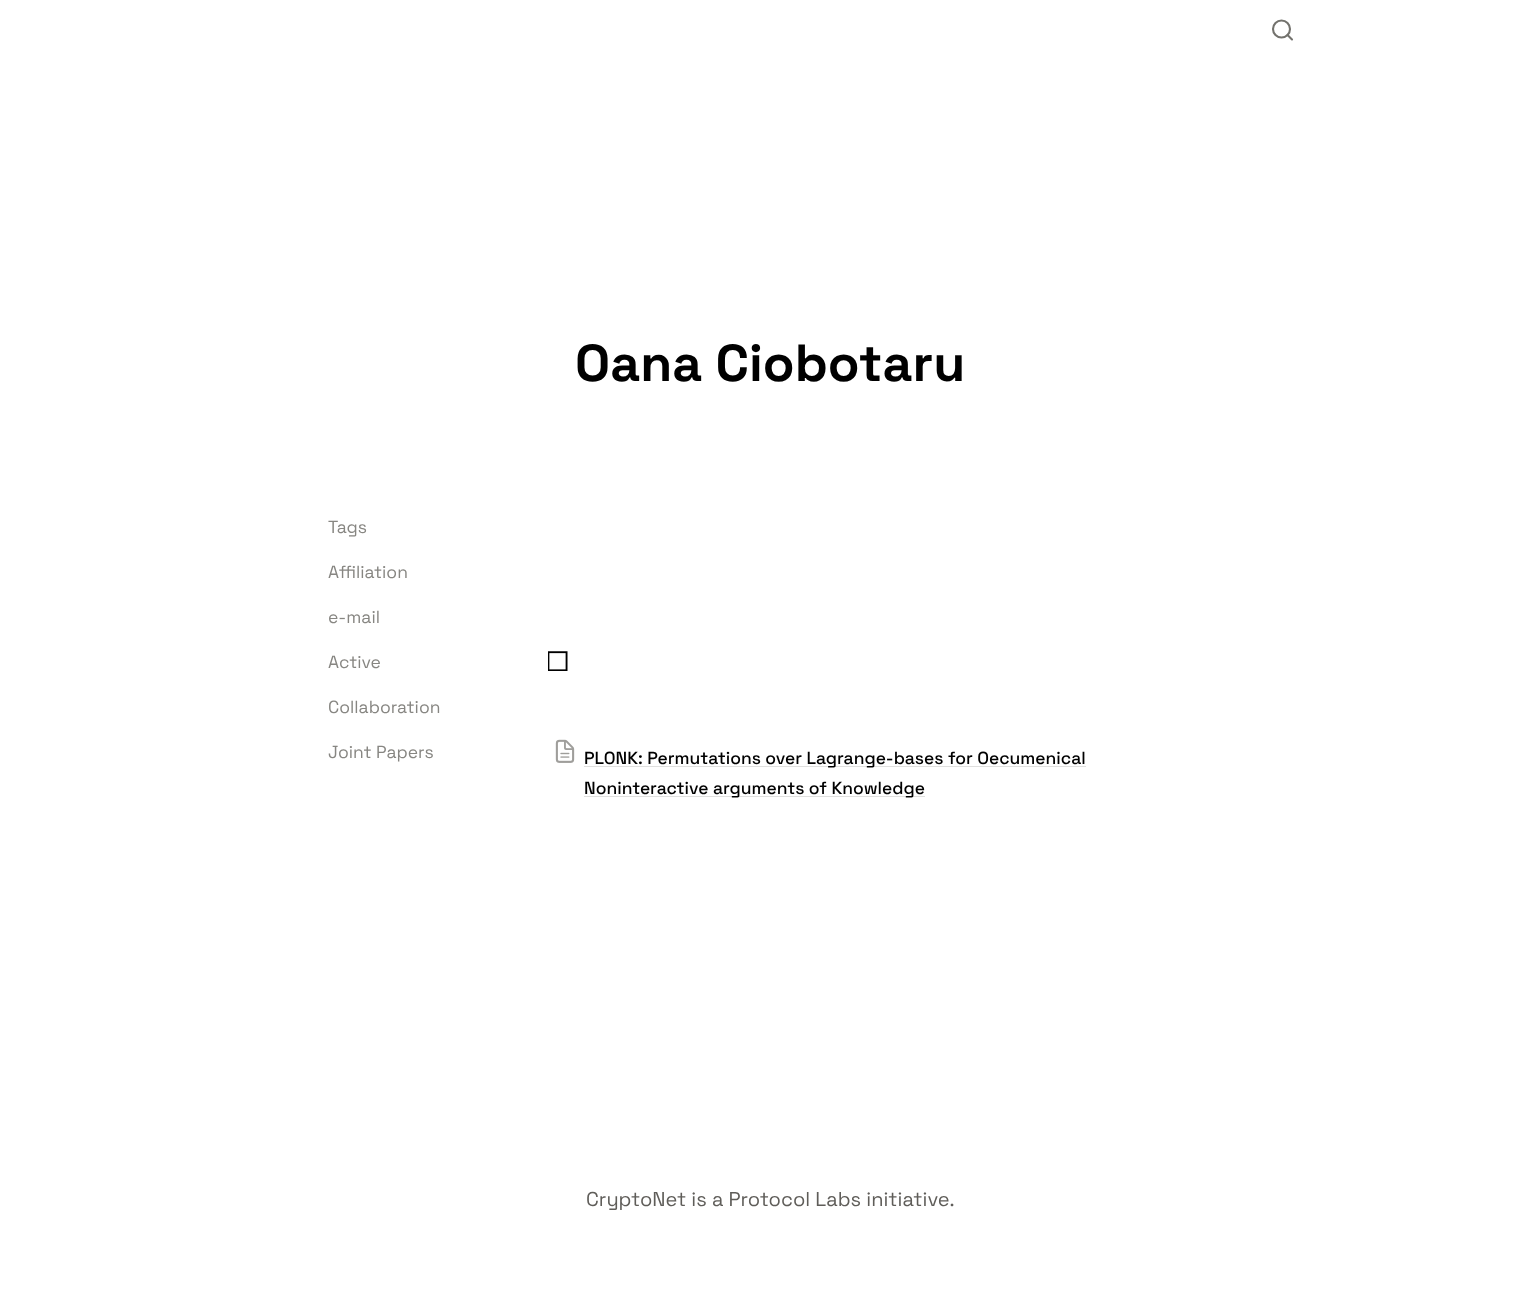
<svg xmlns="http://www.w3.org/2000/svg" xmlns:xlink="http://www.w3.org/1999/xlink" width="1539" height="1292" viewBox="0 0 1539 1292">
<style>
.cls-1{font:300 52px 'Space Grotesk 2';fill:#000000}
.cls-2{font:300 17.5px Space Grotesk;fill:#878682}
.cls-3{font:300 17.5px 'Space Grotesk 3';fill:#000000}
.cls-4{font:300 20px Space Grotesk;fill:#5f5d59}
</style>
<rect width="100%" height="100%" fill="#ffffff"/>
<circle fill="none" stroke="#73726d" stroke-width="2.1" cx="1281.5" cy="29" r="8.5"/>
<path fill="none" stroke="#73726d" stroke-width="2.1" stroke-linecap="round" stroke-linejoin="round" d="M1292 39.5L1287.5 35"/>
<image xlink:href="image0.png" x="548" y="651" width="20" height="20"/>
<image xlink:href="image1.png" x="555" y="739" width="20" height="24"/>
<rect fill="#dfdfde" x="584" y="766" width="502" height="1"/>
<rect fill="#dfdfde" x="584" y="796" width="341" height="1"/>
<text class="cls-1" x="575" y="381">Oana Ciobotaru</text>
<text class="cls-2" x="328" y="533">Tags</text>
<text class="cls-2" x="328" y="578">Affiliation</text>
<text class="cls-2" x="328" y="623">e-mail</text>
<text class="cls-2" x="328" y="668">Active</text>
<text class="cls-2" x="328" y="713">Collaboration</text>
<text class="cls-2" x="328" y="758">Joint Papers</text>
<text class="cls-3"><tspan x="584" y="764">PLONK: Permutations over Lagrange-bases for Oecumenical</tspan><tspan x="584" y="794">Noninteractive arguments of Knowledge</tspan></text>
<text class="cls-4" x="586" y="1206">CryptoNet is a Protocol Labs initiative.</text>
</svg>
